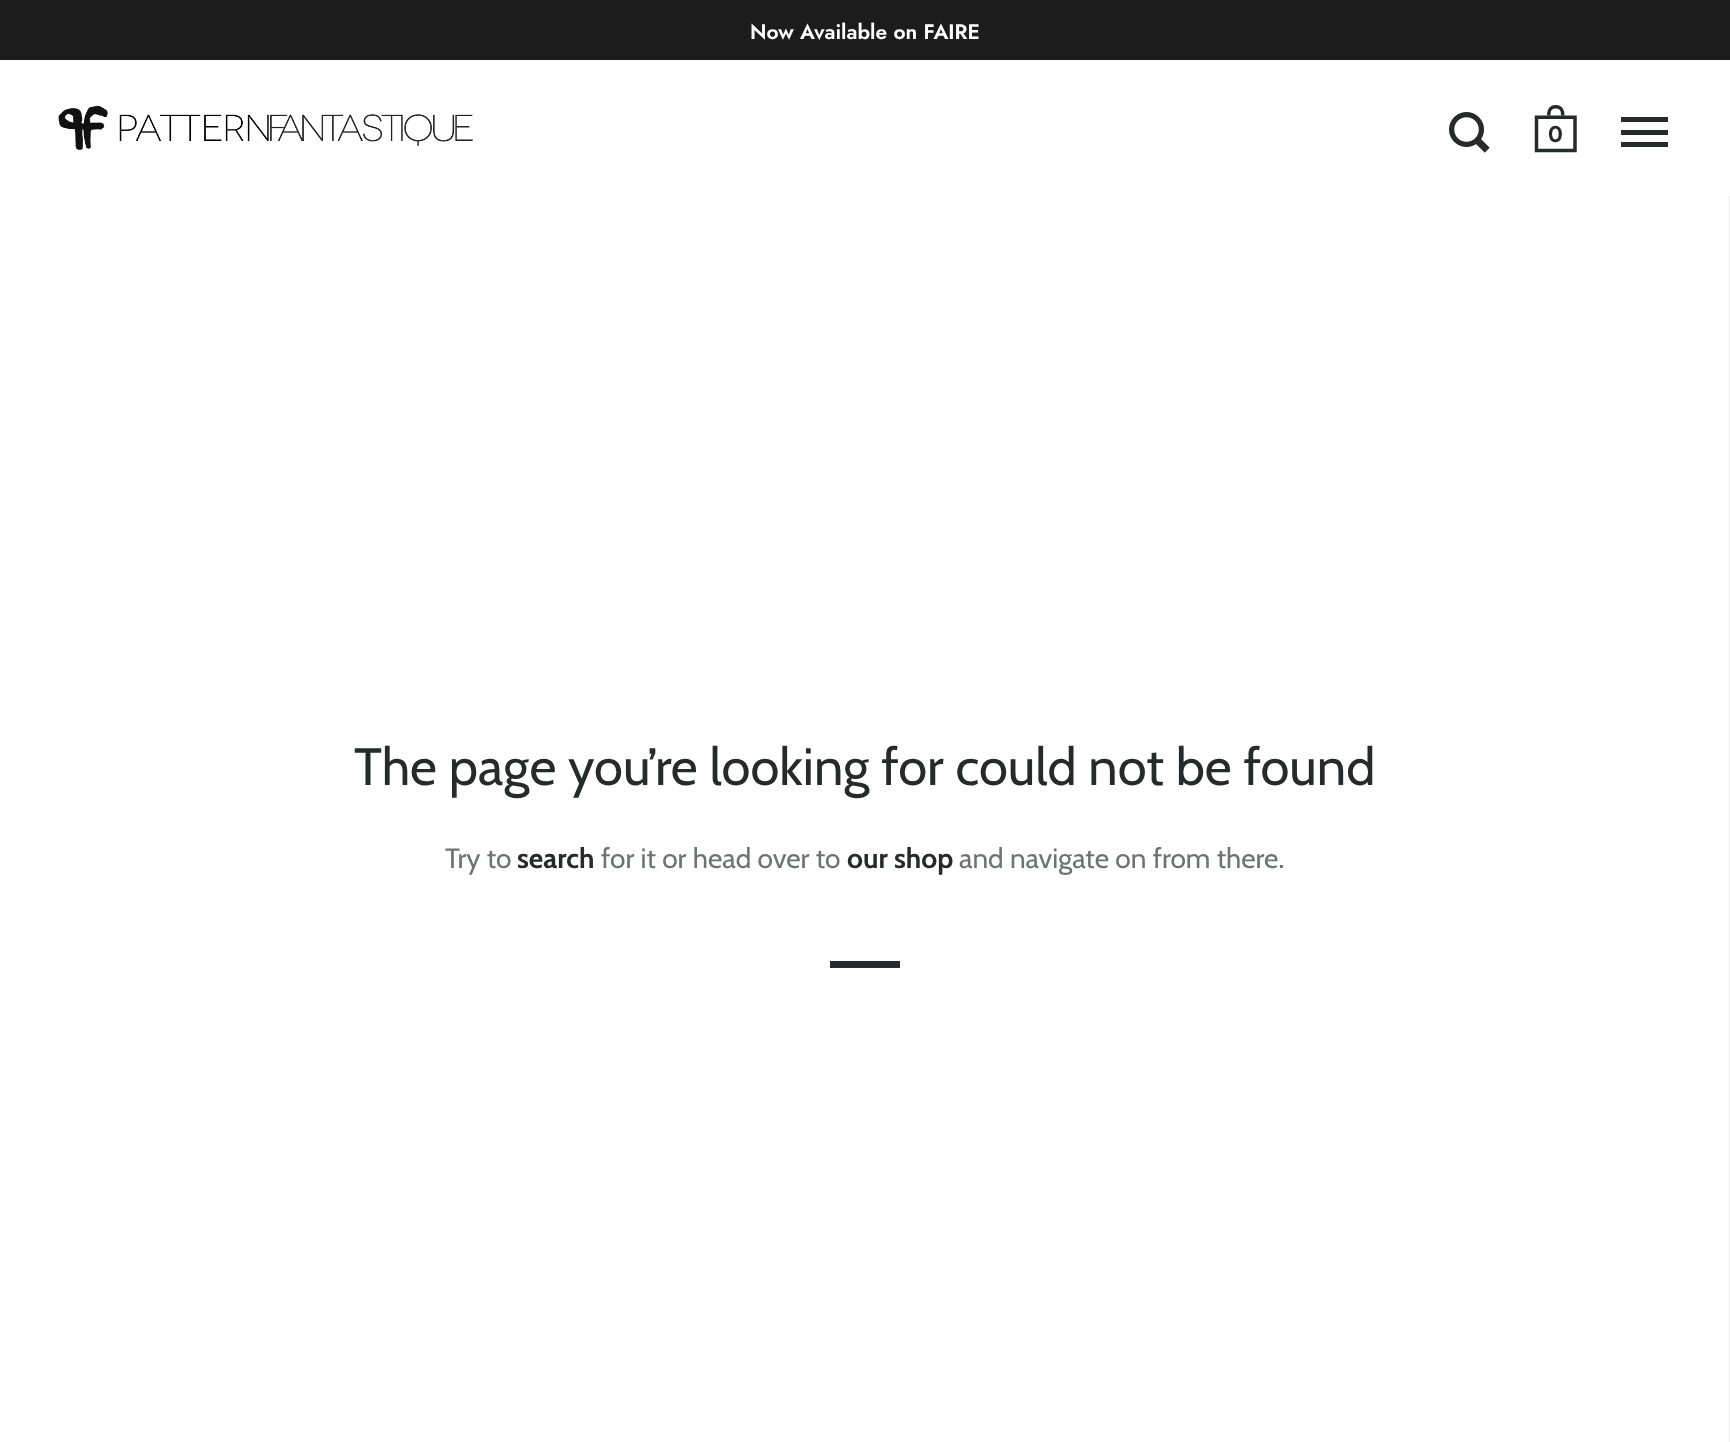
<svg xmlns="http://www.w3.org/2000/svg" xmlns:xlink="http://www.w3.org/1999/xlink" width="1730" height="1442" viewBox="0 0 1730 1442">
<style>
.cls-1{font:600 21px Jost;fill:#ffffff}
.cls-2{font:600 23px Jost;fill:#252a2b}
.cls-3{font:52.5px Cabin;fill:#252a2b}
.cls-4{font:28px Cabin;fill:#6f7273}
.cls-5{font:bold 28px Cabin;fill:#252a2b}
</style>
<rect width="100%" height="100%" fill="#ffffff"/>
<rect fill="#1c1c1c" x="0" y="0" width="1730" height="60"/>
<image xlink:href="image0.png" x="58" y="105" width="415" height="45"/>
<image xlink:href="image1.png" x="1449" y="112" width="41" height="41"/>
<image xlink:href="image2.png" x="1534" y="105" width="43" height="48"/>
<rect fill="#252a2b" x="1621" y="130" width="47" height="5"/>
<rect fill="#252a2b" x="1621" y="117" width="47" height="5"/>
<rect fill="#252a2b" x="1621" y="142" width="47" height="5"/>
<rect fill="#ededed" x="1729" y="196" width="1" height="1246"/>
<rect fill="#252a2b" x="830" y="961" width="70" height="7"/>
<text class="cls-1" x="750" y="39">Now Available on FAIRE</text>
<text class="cls-2" x="1548" y="142">0</text>
<text class="cls-3" x="354" y="785">The page you’re looking for could not be found</text>
<text class="cls-4" x="445" y="868">Try to</text>
<text class="cls-5" x="517" y="868">search</text>
<text class="cls-4" x="601" y="868">for it or head over to</text>
<text class="cls-5" x="847" y="868">our shop</text>
<text class="cls-4" x="959" y="868">and navigate on from there.</text>
</svg>
